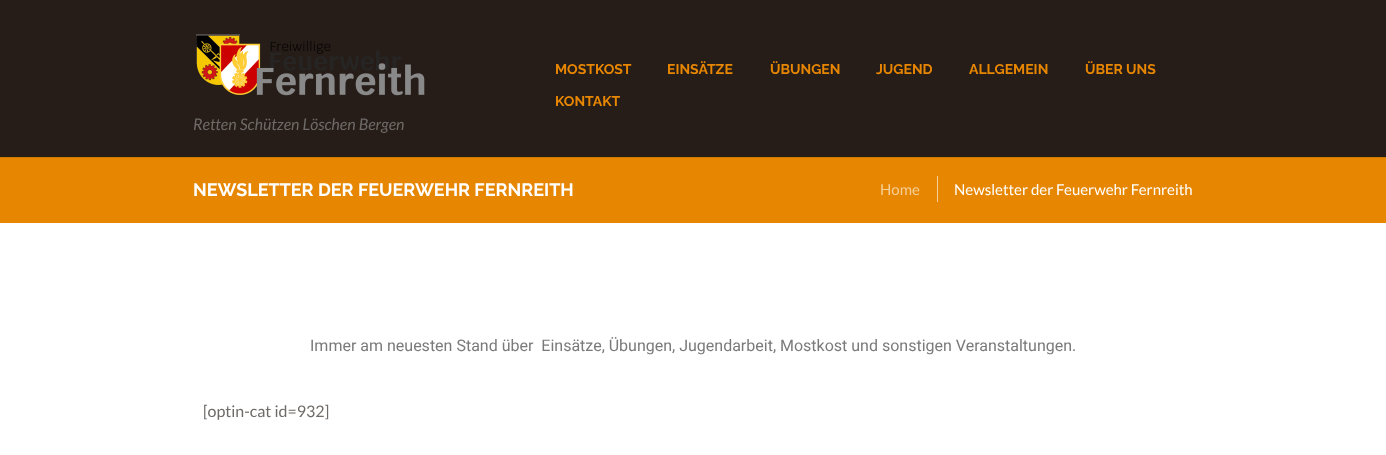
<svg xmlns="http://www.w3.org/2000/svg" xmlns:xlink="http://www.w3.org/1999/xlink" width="1386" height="455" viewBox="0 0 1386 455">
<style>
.cls-1{font:bold 14px Raleway;fill:#e78600}
.cls-2{font:italic 16px Lato;fill:#6e6a67}
.cls-3{font:bold 18px Raleway;fill:#ffffff}
.cls-4{font:15px Lato;fill:#f5cf99}
.cls-5{font:15px Lato;fill:#ffffff}
.cls-6{font:16px Roboto;fill:#7a7a7a}
.cls-7{font:16px Lato;fill:#6e6a67}
</style>
<rect width="100%" height="100%" fill="#ffffff"/>
<rect fill="#261c18" x="0" y="0" width="1386" height="157"/>
<image xlink:href="image0.png" x="196" y="34" width="229" height="62"/>
<rect fill="#e78600" x="0" y="158" width="1386" height="65"/>
<rect fill="#d07900" x="0" y="157" width="1386" height="1"/>
<rect fill="#f5cf99" x="937" y="176" width="1" height="26"/>
<text class="cls-1" x="555" y="74">MOSTKOST</text>
<text class="cls-1" x="667" y="74">EINSÄTZE</text>
<text class="cls-1" x="770" y="74">ÜBUNGEN</text>
<text class="cls-1" x="876" y="74">JUGEND</text>
<text class="cls-1" x="969" y="74">ALLGEMEIN</text>
<text class="cls-1" x="1085" y="74">ÜBER UNS</text>
<text class="cls-1" x="555" y="106">KONTAKT</text>
<text class="cls-2" x="193" y="130">Retten Schützen Löschen Bergen</text>
<text class="cls-3" x="193" y="196">NEWSLETTER DER FEUERWEHR FERNREITH</text>
<text class="cls-4" x="880" y="195">Home</text>
<text class="cls-5" x="954" y="195">Newsletter der Feuerwehr Fernreith</text>
<text class="cls-6" xml:space="preserve" x="310" y="351">Immer am neuesten Stand über  Einsätze, Übungen, Jugendarbeit, Mostkost und sonstigen Veranstaltungen.</text>
<text class="cls-7" x="203" y="417">[optin-cat id=932]</text>
</svg>
